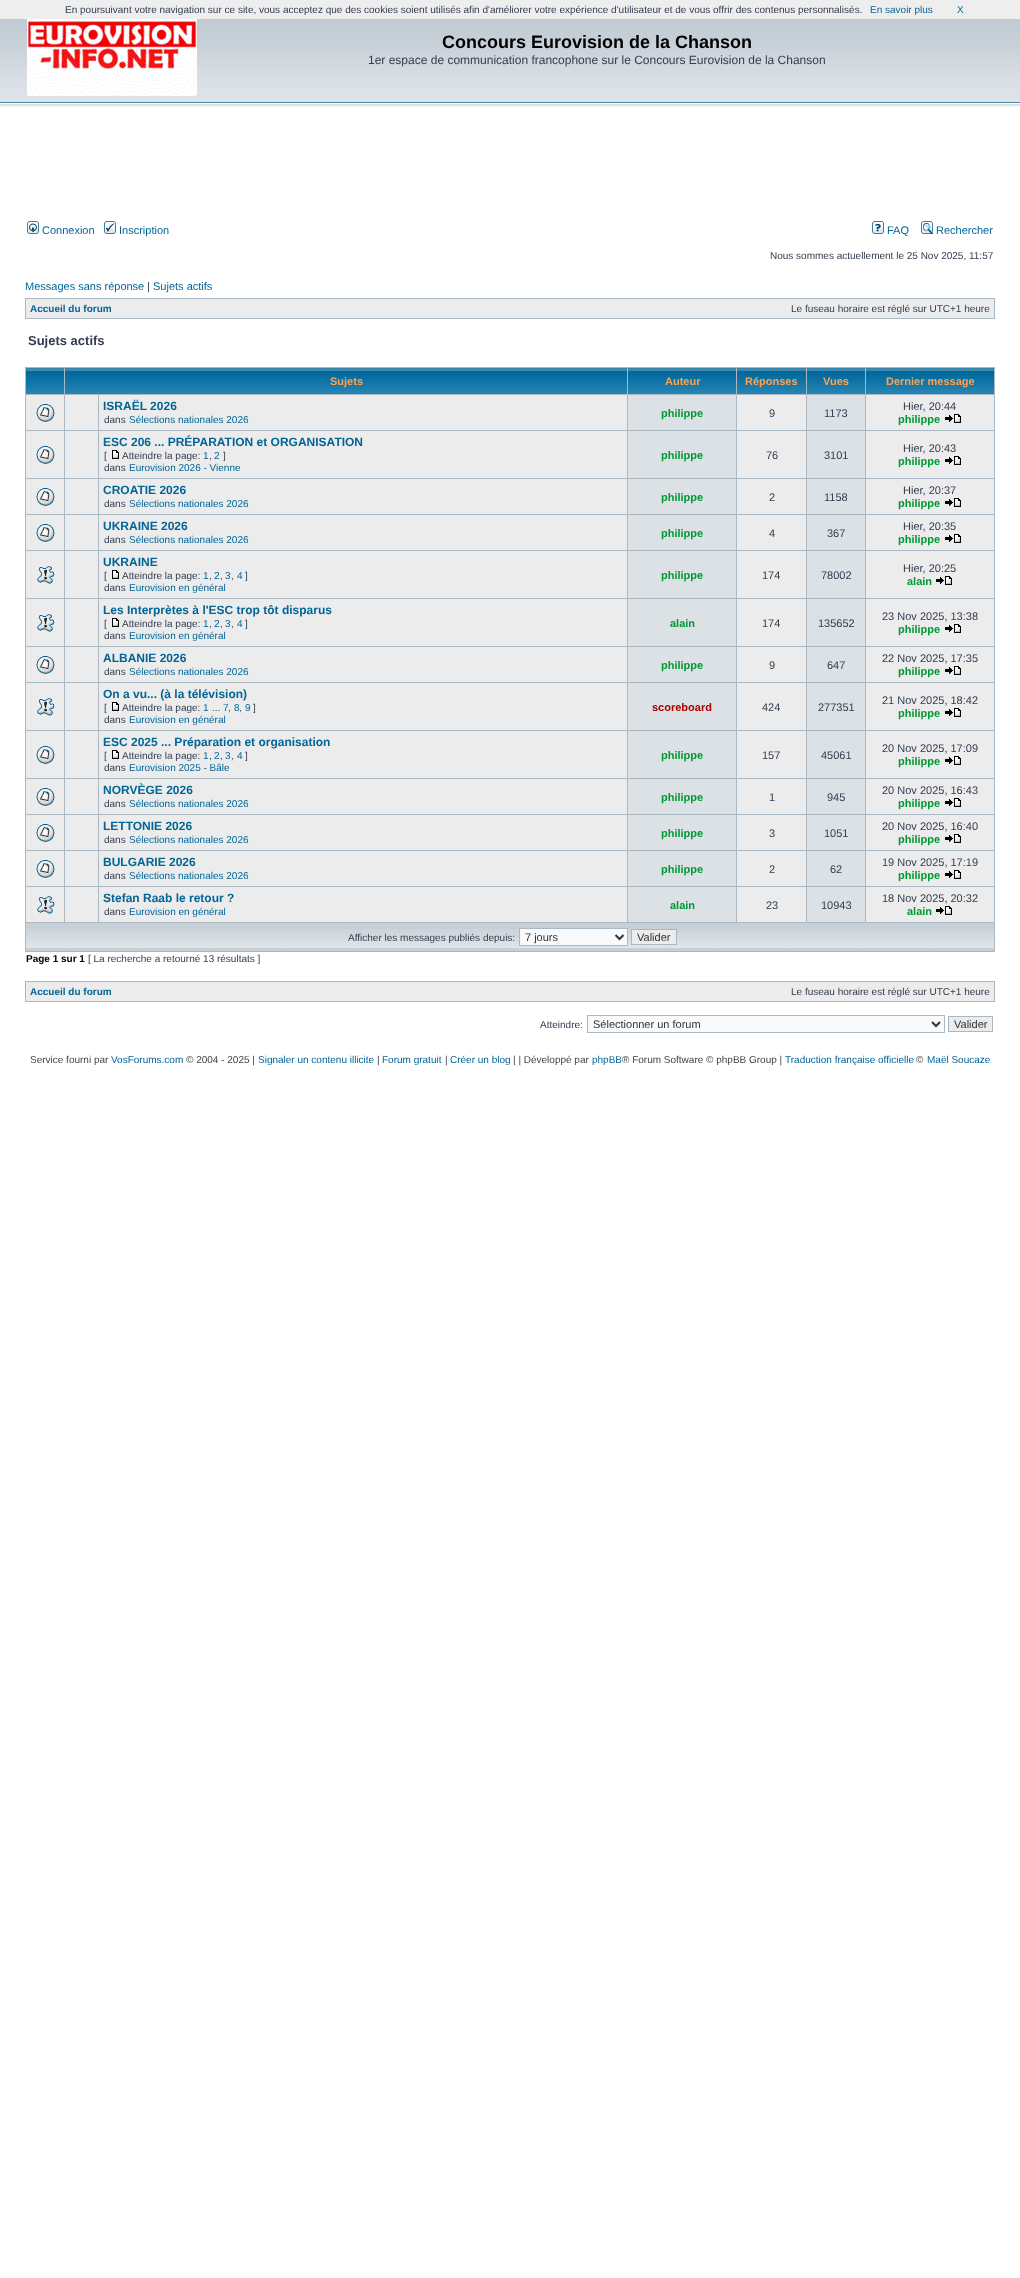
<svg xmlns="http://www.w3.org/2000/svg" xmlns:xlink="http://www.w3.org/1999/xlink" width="1020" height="2278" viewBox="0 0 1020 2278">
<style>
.cls-1{font:10px Liberation Sans;fill:#323d4f}
.cls-2{font:10px Liberation Sans;fill:#006597}
.cls-3{font:bold 18px Liberation Sans;fill:#000000}
.cls-4{font:12px Liberation Sans;fill:#323d4f}
.cls-5{font:11px Liberation Sans;fill:#006597}
.cls-6{font:11px Liberation Sans;fill:#323d4f}
.cls-7{font:bold 10px Liberation Sans;fill:#006597}
.cls-8{font:bold 13px Liberation Sans;fill:#323d4f}
.cls-9{font:bold 11px Liberation Sans;fill:#ffa34f}
.cls-10{font:bold 12px Liberation Sans;fill:#006597}
.cls-11{font:bold 11px Liberation Sans;fill:#009933}
.cls-12{font:bold 11px Liberation Sans;fill:#aa0000}
.cls-13{font:11px Liberation Sans;fill:#333333}
.cls-14{font:bold 10px Liberation Sans;fill:#000000}
.cls-15{font:10px Liberation Sans;fill:#444444}
</style>
<rect width="100%" height="100%" fill="#ffffff"/>
<rect fill="#eeeeee" x="0" y="0" width="1020" height="19"/>
<image xlink:href="image0.png" x="0" y="19" width="1020" height="94"/>
<image xlink:href="image1.png" x="27" y="19" width="170" height="77"/>
<image xlink:href="image2.png" x="27" y="221" width="12" height="13"/>
<image xlink:href="image3.png" x="104" y="221" width="12" height="13"/>
<image xlink:href="image4.png" x="872" y="221" width="12" height="13"/>
<image xlink:href="image5.png" x="921" y="221" width="12" height="13"/>
<rect fill="#a9b8c2" x="25" y="298" width="970" height="21"/>
<rect fill="#ececec" x="26" y="299" width="968" height="19"/>
<rect fill="#a9b8c2" x="25" y="367" width="970" height="585"/>
<image xlink:href="image6.png" x="26" y="368" width="38" height="26"/>
<image xlink:href="image7.png" x="65" y="368" width="562" height="26"/>
<image xlink:href="image8.png" x="628" y="368" width="108" height="26"/>
<image xlink:href="image9.png" x="737" y="368" width="69" height="26"/>
<image xlink:href="image10.png" x="807" y="368" width="58" height="26"/>
<image xlink:href="image11.png" x="866" y="368" width="128" height="26"/>
<rect fill="#ececec" x="26" y="395" width="38" height="35"/>
<image xlink:href="image12.png" x="36" y="404" width="19" height="18"/>
<rect fill="#ececec" x="65" y="395" width="33" height="35"/>
<rect fill="#ececec" x="99" y="395" width="528" height="35"/>
<rect fill="#dce1e5" x="628" y="395" width="108" height="35"/>
<rect fill="#ececec" x="737" y="395" width="69" height="35"/>
<rect fill="#dce1e5" x="807" y="395" width="58" height="35"/>
<rect fill="#ececec" x="866" y="395" width="128" height="35"/>
<image xlink:href="image13.png" x="945" y="414" width="16" height="9"/>
<rect fill="#ececec" x="26" y="431" width="38" height="47"/>
<image xlink:href="image14.png" x="36" y="446" width="19" height="18"/>
<rect fill="#ececec" x="65" y="431" width="33" height="47"/>
<rect fill="#ececec" x="99" y="431" width="528" height="47"/>
<image xlink:href="image15.png" x="112" y="450" width="7" height="9"/>
<rect fill="#dce1e5" x="628" y="431" width="108" height="47"/>
<rect fill="#ececec" x="737" y="431" width="69" height="47"/>
<rect fill="#dce1e5" x="807" y="431" width="58" height="47"/>
<rect fill="#ececec" x="866" y="431" width="128" height="47"/>
<image xlink:href="image13.png" x="945" y="456" width="16" height="9"/>
<rect fill="#ececec" x="26" y="479" width="38" height="35"/>
<image xlink:href="image12.png" x="36" y="488" width="19" height="18"/>
<rect fill="#ececec" x="65" y="479" width="33" height="35"/>
<rect fill="#ececec" x="99" y="479" width="528" height="35"/>
<rect fill="#dce1e5" x="628" y="479" width="108" height="35"/>
<rect fill="#ececec" x="737" y="479" width="69" height="35"/>
<rect fill="#dce1e5" x="807" y="479" width="58" height="35"/>
<rect fill="#ececec" x="866" y="479" width="128" height="35"/>
<image xlink:href="image13.png" x="945" y="498" width="16" height="9"/>
<rect fill="#ececec" x="26" y="515" width="38" height="35"/>
<image xlink:href="image12.png" x="36" y="524" width="19" height="18"/>
<rect fill="#ececec" x="65" y="515" width="33" height="35"/>
<rect fill="#ececec" x="99" y="515" width="528" height="35"/>
<rect fill="#dce1e5" x="628" y="515" width="108" height="35"/>
<rect fill="#ececec" x="737" y="515" width="69" height="35"/>
<rect fill="#dce1e5" x="807" y="515" width="58" height="35"/>
<rect fill="#ececec" x="866" y="515" width="128" height="35"/>
<image xlink:href="image13.png" x="945" y="534" width="16" height="9"/>
<rect fill="#ececec" x="26" y="551" width="38" height="47"/>
<image xlink:href="image16.png" x="37" y="566" width="18" height="18"/>
<rect fill="#ececec" x="65" y="551" width="33" height="47"/>
<rect fill="#ececec" x="99" y="551" width="528" height="47"/>
<image xlink:href="image15.png" x="112" y="570" width="7" height="9"/>
<rect fill="#dce1e5" x="628" y="551" width="108" height="47"/>
<rect fill="#ececec" x="737" y="551" width="69" height="47"/>
<rect fill="#dce1e5" x="807" y="551" width="58" height="47"/>
<rect fill="#ececec" x="866" y="551" width="128" height="47"/>
<image xlink:href="image13.png" x="936" y="576" width="16" height="9"/>
<rect fill="#ececec" x="26" y="599" width="38" height="47"/>
<image xlink:href="image16.png" x="37" y="614" width="18" height="18"/>
<rect fill="#ececec" x="65" y="599" width="33" height="47"/>
<rect fill="#ececec" x="99" y="599" width="528" height="47"/>
<image xlink:href="image15.png" x="112" y="618" width="7" height="9"/>
<rect fill="#dce1e5" x="628" y="599" width="108" height="47"/>
<rect fill="#ececec" x="737" y="599" width="69" height="47"/>
<rect fill="#dce1e5" x="807" y="599" width="58" height="47"/>
<rect fill="#ececec" x="866" y="599" width="128" height="47"/>
<image xlink:href="image13.png" x="945" y="624" width="16" height="9"/>
<rect fill="#ececec" x="26" y="647" width="38" height="35"/>
<image xlink:href="image12.png" x="36" y="656" width="19" height="18"/>
<rect fill="#ececec" x="65" y="647" width="33" height="35"/>
<rect fill="#ececec" x="99" y="647" width="528" height="35"/>
<rect fill="#dce1e5" x="628" y="647" width="108" height="35"/>
<rect fill="#ececec" x="737" y="647" width="69" height="35"/>
<rect fill="#dce1e5" x="807" y="647" width="58" height="35"/>
<rect fill="#ececec" x="866" y="647" width="128" height="35"/>
<image xlink:href="image13.png" x="945" y="666" width="16" height="9"/>
<rect fill="#ececec" x="26" y="683" width="38" height="47"/>
<image xlink:href="image16.png" x="37" y="698" width="18" height="18"/>
<rect fill="#ececec" x="65" y="683" width="33" height="47"/>
<rect fill="#ececec" x="99" y="683" width="528" height="47"/>
<image xlink:href="image15.png" x="112" y="702" width="7" height="9"/>
<rect fill="#dce1e5" x="628" y="683" width="108" height="47"/>
<rect fill="#ececec" x="737" y="683" width="69" height="47"/>
<rect fill="#dce1e5" x="807" y="683" width="58" height="47"/>
<rect fill="#ececec" x="866" y="683" width="128" height="47"/>
<image xlink:href="image13.png" x="945" y="708" width="16" height="9"/>
<rect fill="#ececec" x="26" y="731" width="38" height="47"/>
<image xlink:href="image14.png" x="36" y="746" width="19" height="18"/>
<rect fill="#ececec" x="65" y="731" width="33" height="47"/>
<rect fill="#ececec" x="99" y="731" width="528" height="47"/>
<image xlink:href="image15.png" x="112" y="750" width="7" height="9"/>
<rect fill="#dce1e5" x="628" y="731" width="108" height="47"/>
<rect fill="#ececec" x="737" y="731" width="69" height="47"/>
<rect fill="#dce1e5" x="807" y="731" width="58" height="47"/>
<rect fill="#ececec" x="866" y="731" width="128" height="47"/>
<image xlink:href="image13.png" x="945" y="756" width="16" height="9"/>
<rect fill="#ececec" x="26" y="779" width="38" height="35"/>
<image xlink:href="image12.png" x="36" y="788" width="19" height="18"/>
<rect fill="#ececec" x="65" y="779" width="33" height="35"/>
<rect fill="#ececec" x="99" y="779" width="528" height="35"/>
<rect fill="#dce1e5" x="628" y="779" width="108" height="35"/>
<rect fill="#ececec" x="737" y="779" width="69" height="35"/>
<rect fill="#dce1e5" x="807" y="779" width="58" height="35"/>
<rect fill="#ececec" x="866" y="779" width="128" height="35"/>
<image xlink:href="image13.png" x="945" y="798" width="16" height="9"/>
<rect fill="#ececec" x="26" y="815" width="38" height="35"/>
<image xlink:href="image12.png" x="36" y="824" width="19" height="18"/>
<rect fill="#ececec" x="65" y="815" width="33" height="35"/>
<rect fill="#ececec" x="99" y="815" width="528" height="35"/>
<rect fill="#dce1e5" x="628" y="815" width="108" height="35"/>
<rect fill="#ececec" x="737" y="815" width="69" height="35"/>
<rect fill="#dce1e5" x="807" y="815" width="58" height="35"/>
<rect fill="#ececec" x="866" y="815" width="128" height="35"/>
<image xlink:href="image13.png" x="945" y="834" width="16" height="9"/>
<rect fill="#ececec" x="26" y="851" width="38" height="35"/>
<image xlink:href="image12.png" x="36" y="860" width="19" height="18"/>
<rect fill="#ececec" x="65" y="851" width="33" height="35"/>
<rect fill="#ececec" x="99" y="851" width="528" height="35"/>
<rect fill="#dce1e5" x="628" y="851" width="108" height="35"/>
<rect fill="#ececec" x="737" y="851" width="69" height="35"/>
<rect fill="#dce1e5" x="807" y="851" width="58" height="35"/>
<rect fill="#ececec" x="866" y="851" width="128" height="35"/>
<image xlink:href="image13.png" x="945" y="870" width="16" height="9"/>
<rect fill="#ececec" x="26" y="887" width="38" height="35"/>
<image xlink:href="image16.png" x="37" y="896" width="18" height="18"/>
<rect fill="#ececec" x="65" y="887" width="33" height="35"/>
<rect fill="#ececec" x="99" y="887" width="528" height="35"/>
<rect fill="#dce1e5" x="628" y="887" width="108" height="35"/>
<rect fill="#ececec" x="737" y="887" width="69" height="35"/>
<rect fill="#dce1e5" x="807" y="887" width="58" height="35"/>
<rect fill="#ececec" x="866" y="887" width="128" height="35"/>
<image xlink:href="image13.png" x="936" y="906" width="16" height="9"/>
<rect fill="#c7d0d7" x="26" y="923" width="968" height="28"/>
<image xlink:href="image17.png" x="26" y="929" width="968" height="19"/>
<rect fill="#fafafa" stroke="#a9b8c2" x="519.5" y="928.5" width="108" height="17"/>
<path fill="none" stroke="#333333" stroke-width="2" d="M615.5 935L619.5 939L623.5 935"/>
<rect fill="#ececec" stroke="#a9b8c2" x="631.5" y="929.5" width="45" height="15"/>
<rect fill="#a9b8c2" x="25" y="981" width="970" height="21"/>
<rect fill="#ececec" x="26" y="982" width="968" height="19"/>
<rect fill="#fafafa" stroke="#a9b8c2" x="587.5" y="1015.5" width="357" height="17"/>
<path fill="none" stroke="#333333" stroke-width="2" d="M932 1022L936 1026L940 1022"/>
<rect fill="#ececec" stroke="#a9b8c2" x="948.5" y="1016.5" width="44" height="15"/>
<text class="cls-1" x="65" y="13">En poursuivant votre navigation sur ce site, vous acceptez que des cookies soient utilisés afin d'améliorer votre expérience d'utilisateur et de vous offrir des contenus personnalisés.</text>
<text class="cls-2" x="870" y="13">En savoir plus</text>
<text class="cls-2" x="957" y="13">X</text>
<text class="cls-3" x="442" y="48">Concours Eurovision de la Chanson</text>
<text class="cls-4" x="368" y="64">1er espace de communication francophone sur le Concours Eurovision de la Chanson</text>
<text class="cls-5" x="42" y="234">Connexion</text>
<text class="cls-5" x="119" y="234">Inscription</text>
<text class="cls-5" x="887" y="234">FAQ</text>
<text class="cls-5" x="936" y="234">Rechercher</text>
<text class="cls-1" x="770" y="259">Nous sommes actuellement le 25 Nov 2025, 11:57</text>
<text class="cls-5" x="25" y="290">Messages sans réponse</text>
<text class="cls-6" x="147" y="290">|</text>
<text class="cls-5" x="153" y="290">Sujets actifs</text>
<text class="cls-7" x="30" y="312">Accueil du forum</text>
<text class="cls-1" x="791" y="312">Le fuseau horaire est réglé sur UTC+1 heure</text>
<text class="cls-8" x="28" y="345">Sujets actifs</text>
<text class="cls-9" x="330" y="385">Sujets</text>
<text class="cls-9" x="665" y="385">Auteur</text>
<text class="cls-9" x="745" y="385">Réponses</text>
<text class="cls-9" x="823" y="385">Vues</text>
<text class="cls-9" x="886" y="385">Dernier message</text>
<text class="cls-10" x="103" y="410">ISRAËL 2026</text>
<text class="cls-1" x="104" y="423">dans</text>
<text class="cls-2" x="129" y="423">Sélections nationales 2026</text>
<text class="cls-11" x="661" y="417">philippe</text>
<text class="cls-6" x="769" y="417">9</text>
<text class="cls-6" x="824" y="417">1173</text>
<text class="cls-6" x="903" y="410">Hier, 20:44</text>
<text class="cls-11" x="898" y="423">philippe</text>
<text class="cls-10" x="103" y="446">ESC 206 ... PRÉPARATION et ORGANISATION</text>
<text class="cls-1" x="104" y="459">[</text>
<text class="cls-1" x="122" y="459">Atteindre la page:</text>
<text class="cls-2" x="203" y="459">1</text>
<text class="cls-1" x="209" y="459">,</text>
<text class="cls-2" x="214" y="459">2</text>
<text class="cls-1" x="223" y="459">]</text>
<text class="cls-1" x="104" y="471">dans</text>
<text class="cls-2" x="129" y="471">Eurovision 2026 - Vienne</text>
<text class="cls-11" x="661" y="459">philippe</text>
<text class="cls-6" x="766" y="459">76</text>
<text class="cls-6" x="824" y="459">3101</text>
<text class="cls-6" x="903" y="452">Hier, 20:43</text>
<text class="cls-11" x="898" y="465">philippe</text>
<text class="cls-10" x="103" y="494">CROATIE 2026</text>
<text class="cls-1" x="104" y="507">dans</text>
<text class="cls-2" x="129" y="507">Sélections nationales 2026</text>
<text class="cls-11" x="661" y="501">philippe</text>
<text class="cls-6" x="769" y="501">2</text>
<text class="cls-6" x="824" y="501">1158</text>
<text class="cls-6" x="903" y="494">Hier, 20:37</text>
<text class="cls-11" x="898" y="507">philippe</text>
<text class="cls-10" x="103" y="530">UKRAINE 2026</text>
<text class="cls-1" x="104" y="543">dans</text>
<text class="cls-2" x="129" y="543">Sélections nationales 2026</text>
<text class="cls-11" x="661" y="537">philippe</text>
<text class="cls-6" x="769" y="537">4</text>
<text class="cls-6" x="827" y="537">367</text>
<text class="cls-6" x="903" y="530">Hier, 20:35</text>
<text class="cls-11" x="898" y="543">philippe</text>
<text class="cls-10" x="103" y="566">UKRAINE</text>
<text class="cls-1" x="104" y="579">[</text>
<text class="cls-1" x="122" y="579">Atteindre la page:</text>
<text class="cls-2" x="203" y="579">1</text>
<text class="cls-1" x="209" y="579">,</text>
<text class="cls-2" x="214" y="579">2</text>
<text class="cls-1" x="220" y="579">,</text>
<text class="cls-2" x="225" y="579">3</text>
<text class="cls-1" x="231" y="579">,</text>
<text class="cls-2" x="237" y="579">4</text>
<text class="cls-1" x="245" y="579">]</text>
<text class="cls-1" x="104" y="591">dans</text>
<text class="cls-2" x="129" y="591">Eurovision en général</text>
<text class="cls-11" x="661" y="579">philippe</text>
<text class="cls-6" x="762" y="579">174</text>
<text class="cls-6" x="821" y="579">78002</text>
<text class="cls-6" x="903" y="572">Hier, 20:25</text>
<text class="cls-11" x="907" y="585">alain</text>
<text class="cls-10" x="103" y="614">Les Interprètes à l'ESC trop tôt disparus</text>
<text class="cls-1" x="104" y="627">[</text>
<text class="cls-1" x="122" y="627">Atteindre la page:</text>
<text class="cls-2" x="203" y="627">1</text>
<text class="cls-1" x="209" y="627">,</text>
<text class="cls-2" x="214" y="627">2</text>
<text class="cls-1" x="220" y="627">,</text>
<text class="cls-2" x="225" y="627">3</text>
<text class="cls-1" x="231" y="627">,</text>
<text class="cls-2" x="237" y="627">4</text>
<text class="cls-1" x="245" y="627">]</text>
<text class="cls-1" x="104" y="639">dans</text>
<text class="cls-2" x="129" y="639">Eurovision en général</text>
<text class="cls-11" x="670" y="627">alain</text>
<text class="cls-6" x="762" y="627">174</text>
<text class="cls-6" x="818" y="627">135652</text>
<text class="cls-6" x="882" y="620">23 Nov 2025, 13:38</text>
<text class="cls-11" x="898" y="633">philippe</text>
<text class="cls-10" x="103" y="662">ALBANIE 2026</text>
<text class="cls-1" x="104" y="675">dans</text>
<text class="cls-2" x="129" y="675">Sélections nationales 2026</text>
<text class="cls-11" x="661" y="669">philippe</text>
<text class="cls-6" x="769" y="669">9</text>
<text class="cls-6" x="827" y="669">647</text>
<text class="cls-6" x="882" y="662">22 Nov 2025, 17:35</text>
<text class="cls-11" x="898" y="675">philippe</text>
<text class="cls-10" x="103" y="698">On a vu... (à la télévision)</text>
<text class="cls-1" x="104" y="711">[</text>
<text class="cls-1" x="122" y="711">Atteindre la page:</text>
<text class="cls-2" x="203" y="711">1</text>
<text class="cls-1" x="212" y="711">...</text>
<text class="cls-2" x="223" y="711">7</text>
<text class="cls-1" x="228" y="711">,</text>
<text class="cls-2" x="234" y="711">8</text>
<text class="cls-1" x="239" y="711">,</text>
<text class="cls-2" x="245" y="711">9</text>
<text class="cls-1" x="253" y="711">]</text>
<text class="cls-1" x="104" y="723">dans</text>
<text class="cls-2" x="129" y="723">Eurovision en général</text>
<text class="cls-12" x="652" y="711">scoreboard</text>
<text class="cls-6" x="762" y="711">424</text>
<text class="cls-6" x="818" y="711">277351</text>
<text class="cls-6" x="882" y="704">21 Nov 2025, 18:42</text>
<text class="cls-11" x="898" y="717">philippe</text>
<text class="cls-10" x="103" y="746">ESC 2025 ... Préparation et organisation</text>
<text class="cls-1" x="104" y="759">[</text>
<text class="cls-1" x="122" y="759">Atteindre la page:</text>
<text class="cls-2" x="203" y="759">1</text>
<text class="cls-1" x="209" y="759">,</text>
<text class="cls-2" x="214" y="759">2</text>
<text class="cls-1" x="220" y="759">,</text>
<text class="cls-2" x="225" y="759">3</text>
<text class="cls-1" x="231" y="759">,</text>
<text class="cls-2" x="237" y="759">4</text>
<text class="cls-1" x="245" y="759">]</text>
<text class="cls-1" x="104" y="771">dans</text>
<text class="cls-2" x="129" y="771">Eurovision 2025 - Bâle</text>
<text class="cls-11" x="661" y="759">philippe</text>
<text class="cls-6" x="762" y="759">157</text>
<text class="cls-6" x="821" y="759">45061</text>
<text class="cls-6" x="882" y="752">20 Nov 2025, 17:09</text>
<text class="cls-11" x="898" y="765">philippe</text>
<text class="cls-10" x="103" y="794">NORVÈGE 2026</text>
<text class="cls-1" x="104" y="807">dans</text>
<text class="cls-2" x="129" y="807">Sélections nationales 2026</text>
<text class="cls-11" x="661" y="801">philippe</text>
<text class="cls-6" x="769" y="801">1</text>
<text class="cls-6" x="827" y="801">945</text>
<text class="cls-6" x="882" y="794">20 Nov 2025, 16:43</text>
<text class="cls-11" x="898" y="807">philippe</text>
<text class="cls-10" x="103" y="830">LETTONIE 2026</text>
<text class="cls-1" x="104" y="843">dans</text>
<text class="cls-2" x="129" y="843">Sélections nationales 2026</text>
<text class="cls-11" x="661" y="837">philippe</text>
<text class="cls-6" x="769" y="837">3</text>
<text class="cls-6" x="824" y="837">1051</text>
<text class="cls-6" x="882" y="830">20 Nov 2025, 16:40</text>
<text class="cls-11" x="898" y="843">philippe</text>
<text class="cls-10" x="103" y="866">BULGARIE 2026</text>
<text class="cls-1" x="104" y="879">dans</text>
<text class="cls-2" x="129" y="879">Sélections nationales 2026</text>
<text class="cls-11" x="661" y="873">philippe</text>
<text class="cls-6" x="769" y="873">2</text>
<text class="cls-6" x="830" y="873">62</text>
<text class="cls-6" x="882" y="866">19 Nov 2025, 17:19</text>
<text class="cls-11" x="898" y="879">philippe</text>
<text class="cls-10" x="103" y="902">Stefan Raab le retour ?</text>
<text class="cls-1" x="104" y="915">dans</text>
<text class="cls-2" x="129" y="915">Eurovision en général</text>
<text class="cls-11" x="670" y="909">alain</text>
<text class="cls-6" x="766" y="909">23</text>
<text class="cls-6" x="821" y="909">10943</text>
<text class="cls-6" x="882" y="902">18 Nov 2025, 20:32</text>
<text class="cls-11" x="907" y="915">alain</text>
<text class="cls-1" x="348" y="941">Afficher les messages publiés depuis:</text>
<text class="cls-13" x="525" y="941">7 jours</text>
<text class="cls-13" x="637" y="941">Valider</text>
<text class="cls-14" x="26" y="962">Page 1 sur 1</text>
<text class="cls-1" x="88" y="962">[ La recherche a retourné 13 résultats ]</text>
<text class="cls-7" x="30" y="995">Accueil du forum</text>
<text class="cls-1" x="791" y="995">Le fuseau horaire est réglé sur UTC+1 heure</text>
<text class="cls-1" x="540" y="1028">Atteindre:</text>
<text class="cls-13" x="593" y="1028">Sélectionner un forum</text>
<text class="cls-13" x="954" y="1028">Valider</text>
<text class="cls-15" x="30" y="1063">Service fourni par</text>
<text class="cls-2" x="111" y="1063">VosForums.com</text>
<text class="cls-15" x="186" y="1063">© 2004 - 2025 |</text>
<text class="cls-2" x="258" y="1063">Signaler un contenu illicite</text>
<text class="cls-15" x="377" y="1063">|</text>
<text class="cls-2" x="382" y="1063">Forum gratuit</text>
<text class="cls-15" x="445" y="1063">|</text>
<text class="cls-2" x="450" y="1063">Créer un blog</text>
<text class="cls-15" x="513" y="1063">| | Développé par</text>
<text class="cls-2" x="592" y="1063">phpBB</text>
<text class="cls-15" x="622" y="1063">® Forum Software © phpBB Group |</text>
<text class="cls-2" x="785" y="1063">Traduction française officielle</text>
<text class="cls-15" x="916" y="1063">©</text>
<text class="cls-2" x="927" y="1063">Maël Soucaze</text>
</svg>
